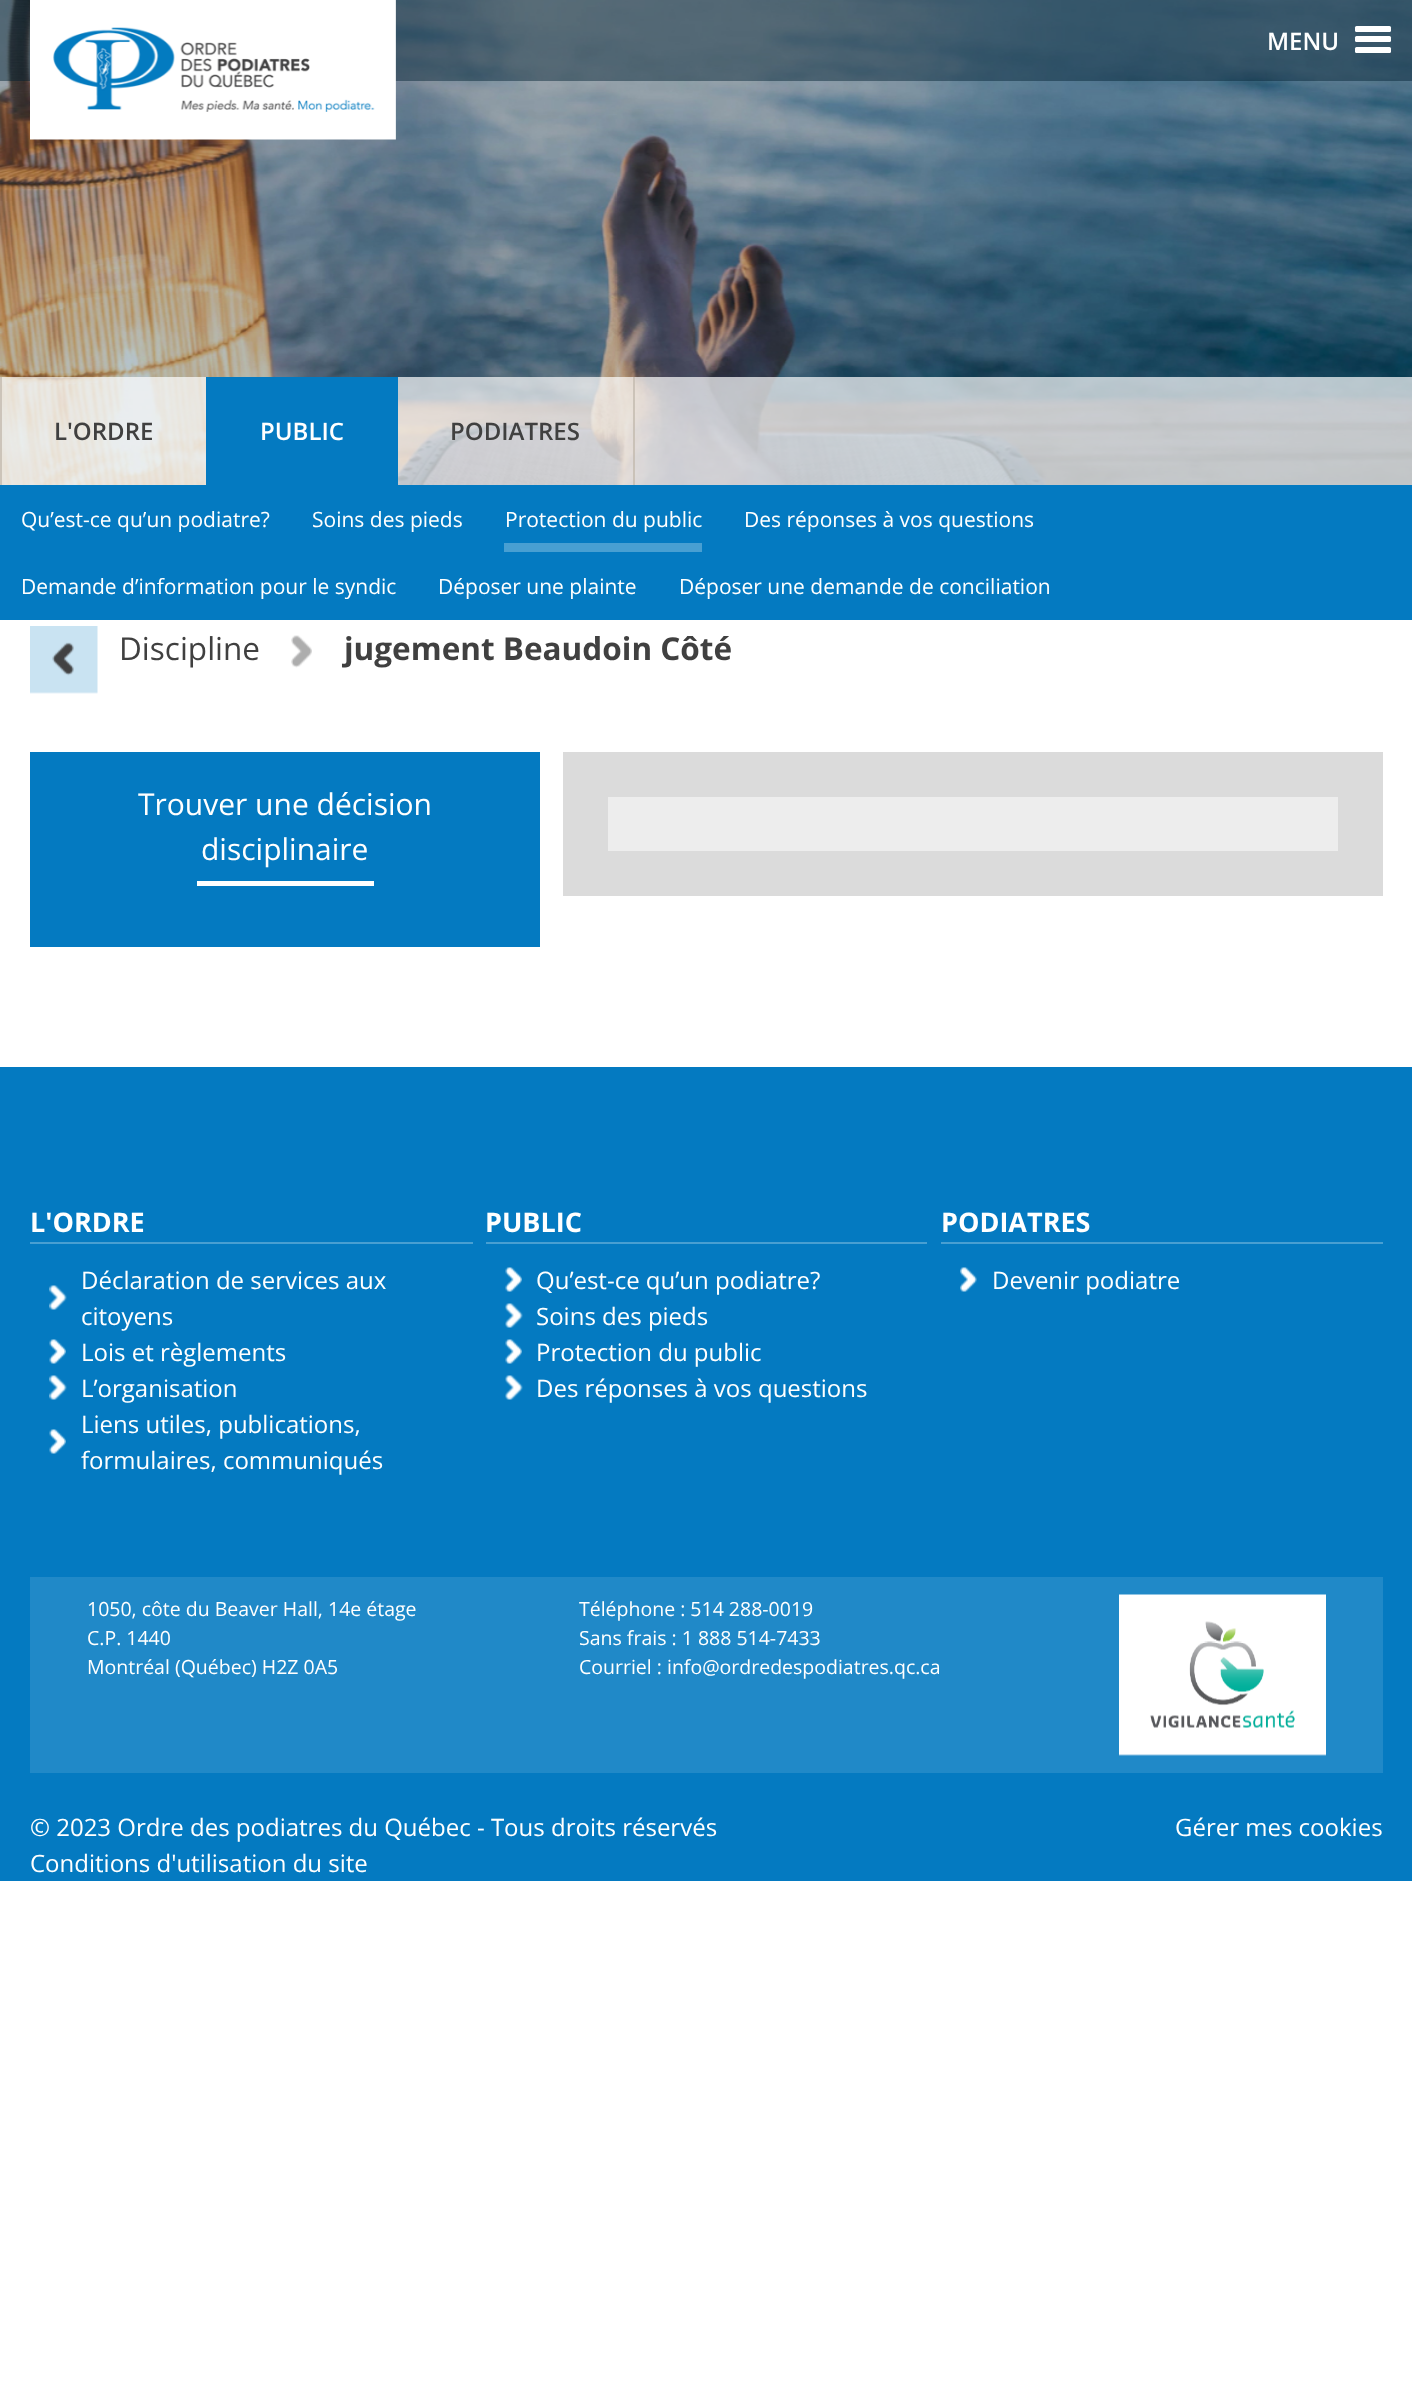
<svg xmlns="http://www.w3.org/2000/svg" xmlns:xlink="http://www.w3.org/1999/xlink" width="1412" height="2386" viewBox="0 0 1412 2386">
<style>
.cls-1{font:600 24px Open Sans;fill:#ffffff}
.cls-2{font:600 24px Open Sans;fill:#404040}
.cls-3{font:21px Open Sans;fill:#ffffff}
.cls-4{font:31.5px Open Sans;fill:#404040}
.cls-5{font:bold 31.5px Open Sans;fill:#404040}
.cls-6{font:30px Open Sans;fill:#ffffff}
.cls-7{font:bold 27px Open Sans;fill:#ffffff}
.cls-8{font:24px Open Sans;fill:#ffffff}
.cls-9{font:19.5px Open Sans;fill:#ffffff}
</style>
<rect width="100%" height="100%" fill="#ffffff"/>
<image xlink:href="image1.png" x="0" y="0" width="1412" height="485"/>
<rect fill="#011f30" fill-opacity="0.45" x="0" y="0" width="1412" height="81"/>
<image xlink:href="image0.png" x="30" y="0" width="366" height="140"/>
<rect fill="#ffffff" x="1355" y="26" width="36" height="6" rx="1.5"/>
<rect fill="#ffffff" x="1355" y="36" width="36" height="6" rx="1.5"/>
<rect fill="#ffffff" x="1355" y="47" width="36" height="6" rx="1.5"/>
<rect fill="#ffffff" fill-opacity="0.7" x="0" y="377" width="1412" height="108"/>
<rect fill="#c4bbb0" fill-opacity="0.8" x="0" y="377" width="2" height="108"/>
<rect fill="#047ac1" x="206" y="377" width="192" height="108"/>
<rect fill="#c4bbb0" fill-opacity="0.8" x="633" y="377" width="2" height="108"/>
<rect fill="#047ac1" x="0" y="485" width="1412" height="135"/>
<rect fill="#489fd2" x="504" y="543" width="198" height="9"/>
<image xlink:href="image2.png" x="30" y="626" width="68" height="68"/>
<image xlink:href="image3.png" x="291" y="635" width="21" height="33"/>
<rect fill="#047ac1" x="30" y="752" width="510" height="195"/>
<rect fill="#ffffff" x="197" y="881" width="177" height="5"/>
<rect fill="#dbdbdb" x="563" y="752" width="820" height="144"/>
<rect fill="#ededed" x="608" y="797" width="730" height="54"/>
<rect fill="#047ac1" x="0" y="1067" width="1412" height="814"/>
<rect fill="#489fd2" x="30" y="1242" width="443" height="2"/>
<image xlink:href="image4.png" x="49" y="1285" width="18" height="25"/>
<image xlink:href="image5.png" x="49" y="1339" width="17" height="25"/>
<image xlink:href="image4.png" x="49" y="1375" width="18" height="25"/>
<image xlink:href="image5.png" x="49" y="1429" width="17" height="25"/>
<rect fill="#489fd2" x="486" y="1242" width="441" height="2"/>
<image xlink:href="image5.png" x="505" y="1267" width="17" height="25"/>
<image xlink:href="image6.png" x="505" y="1303" width="18" height="25"/>
<image xlink:href="image5.png" x="505" y="1339" width="17" height="25"/>
<image xlink:href="image6.png" x="505" y="1375" width="18" height="25"/>
<rect fill="#489fd2" x="941" y="1242" width="442" height="2"/>
<image xlink:href="image7.png" x="960" y="1267" width="17" height="25"/>
<rect fill="#2089c8" x="30" y="1577" width="1353" height="196"/>
<image xlink:href="image8.png" x="1119" y="1594" width="207" height="162"/>
<text class="cls-1" x="1267" y="50">MENU</text>
<text class="cls-2" x="54" y="440">L'ORDRE</text>
<text class="cls-1" x="260" y="440">PUBLIC</text>
<text class="cls-2" x="450" y="440">PODIATRES</text>
<text class="cls-3" x="21" y="527">Qu’est-ce qu’un podiatre?</text>
<text class="cls-3" x="312" y="527">Soins des pieds</text>
<text class="cls-3" x="505" y="527">Protection du public</text>
<text class="cls-3" x="744" y="527">Des réponses à vos questions</text>
<text class="cls-3" x="21" y="594">Demande d’information pour le syndic</text>
<text class="cls-3" x="438" y="594">Déposer une plainte</text>
<text class="cls-3" x="679" y="594">Déposer une demande de conciliation</text>
<text class="cls-4" x="119" y="660">Discipline</text>
<text class="cls-5" x="344" y="660">jugement Beaudoin Côté</text>
<text class="cls-6" x="138" y="815">Trouver une décision</text>
<text class="cls-6" x="201" y="860">disciplinaire</text>
<text class="cls-7" x="30" y="1232">L'ORDRE</text>
<text class="cls-8"><tspan x="81" y="1289">Déclaration de services aux</tspan><tspan x="81" y="1325">citoyens</tspan><tspan x="81" y="1361">Lois et règlements</tspan><tspan x="81" y="1397">L’organisation</tspan><tspan x="81" y="1433">Liens utiles, publications,</tspan><tspan x="81" y="1469">formulaires, communiqués</tspan></text>
<text class="cls-7" x="485" y="1232">PUBLIC</text>
<text class="cls-8"><tspan x="536" y="1289">Qu’est-ce qu’un podiatre?</tspan><tspan x="536" y="1325">Soins des pieds</tspan><tspan x="536" y="1361">Protection du public</tspan><tspan x="536" y="1397">Des réponses à vos questions</tspan></text>
<text class="cls-7" x="941" y="1232">PODIATRES</text>
<text class="cls-8" x="992" y="1289">Devenir podiatre</text>
<text class="cls-9"><tspan x="87" y="1616">1050, côte du Beaver Hall, 14e étage</tspan><tspan x="87" y="1645">C.P. 1440</tspan><tspan x="87" y="1674">Montréal (Québec) H2Z 0A5</tspan></text>
<text class="cls-9"><tspan x="579" y="1616">Téléphone : 514 288-0019</tspan><tspan x="579" y="1645">Sans frais : 1 888 514-7433</tspan><tspan x="579" y="1674">Courriel : info@ordredespodiatres.qc.ca</tspan></text>
<text class="cls-8"><tspan x="30" y="1836">© 2023 Ordre des podiatres du Québec - Tous droits réservés</tspan><tspan x="30" y="1872">Conditions d'utilisation du site</tspan></text>
<text class="cls-8" x="1175" y="1836">Gérer mes cookies</text>
</svg>
